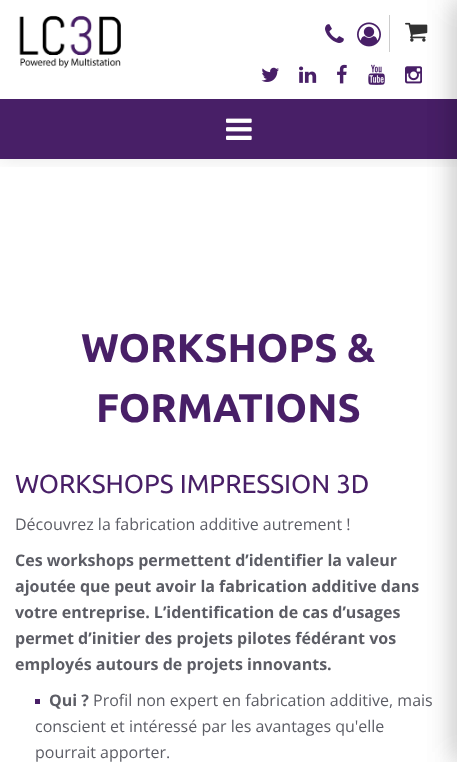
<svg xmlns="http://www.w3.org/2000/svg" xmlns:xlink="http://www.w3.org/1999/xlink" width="457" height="762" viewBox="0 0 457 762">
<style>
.cls-1{font:bold 40px Ubuntu;fill:#481f67}
.cls-2{font:26px Ubuntu;fill:#481f67}
.cls-3{font:16px Open Sans;fill:#5c5d65}
.cls-4{font:bold 16px Open Sans;fill:#5c5d65}
</style>
<defs>
<clipPath id="clip1"><rect x="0" y="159" width="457" height="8"/></clipPath>
</defs>
<rect width="100%" height="100%" fill="#ffffff"/>
<g clip-path="url(#clip1)">
<rect fill="#000000" fill-opacity="0.1" filter="blur(10px)" x="0" y="0" width="457" height="159"/>
</g>
<rect fill="#481f67" x="0" y="99" width="457" height="60"/>
<image xlink:href="image0.png" x="226" y="118" width="26" height="22"/>
<image xlink:href="image4.png" x="405" y="22" width="23" height="20"/>
<image xlink:href="image9.png" x="405" y="66" width="17" height="18"/>
<rect fill="#000000" fill-opacity="0.15" filter="blur(15px)" x="457" y="0" width="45" height="762"/>
<image xlink:href="image1.png" x="19" y="15" width="102" height="54"/>
<image xlink:href="image2.png" x="325" y="24" width="19" height="19"/>
<image xlink:href="image3.png" x="357" y="22" width="24" height="25"/>
<rect fill="#cccccc" x="389" y="15" width="1" height="37"/>
<rect fill="#000000" fill-opacity="0.15" filter="blur(15px)" x="457" y="0" width="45" height="762"/>
<image xlink:href="image5.png" x="261" y="67" width="18" height="15"/>
<image xlink:href="image6.png" x="299" y="66" width="18" height="17"/>
<image xlink:href="image7.png" x="337" y="64" width="10" height="20"/>
<image xlink:href="image8.png" x="368" y="64" width="17" height="21"/>
<rect fill="#481f67" x="35" y="699" width="5" height="5"/>
<text class="cls-1" x="81" y="362">WORKSHOPS &amp;</text>
<text class="cls-1" x="96" y="422">FORMATIONS</text>
<text class="cls-2" x="15" y="493">WORKSHOPS IMPRESSION 3D</text>
<text class="cls-3" x="15" y="530">Découvrez la fabrication additive autrement !</text>
<text class="cls-4"><tspan x="15" y="566">Ces workshops permettent d’identifier la valeur</tspan><tspan x="15" y="592">ajoutée que peut avoir la fabrication additive dans</tspan><tspan x="15" y="618">votre entreprise. L’identification de cas d’usages</tspan><tspan x="15" y="644">permet d’initier des projets pilotes fédérant vos</tspan><tspan x="15" y="670">employés autours de projets innovants.</tspan></text>
<text class="cls-4" x="49" y="706">Qui ?</text>
<text class="cls-3" x="93" y="706">Profil non expert en fabrication additive, mais</text>
<text class="cls-3"><tspan x="35" y="732">conscient et intéressé par les avantages qu'elle</tspan><tspan x="35" y="758">pourrait apporter.</tspan></text>
</svg>
